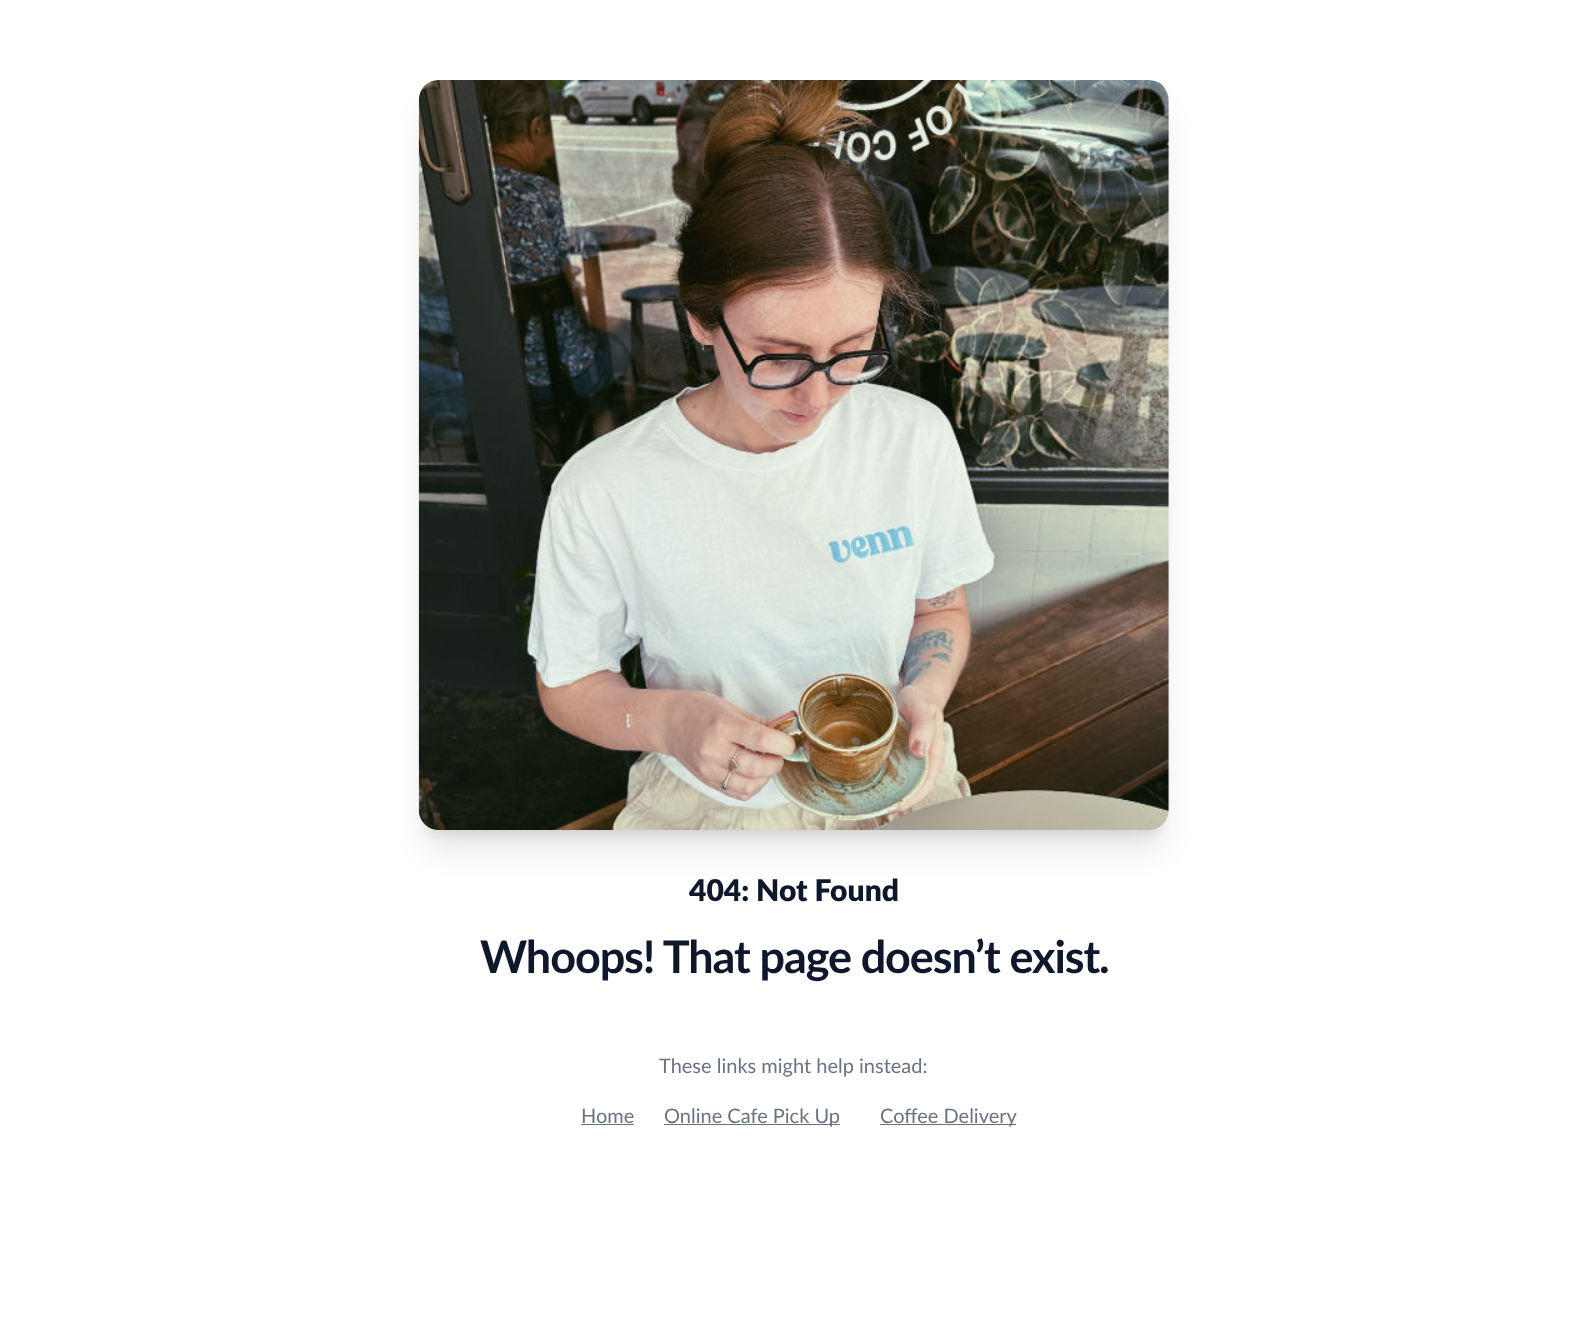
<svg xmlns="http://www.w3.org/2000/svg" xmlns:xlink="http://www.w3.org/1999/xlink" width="1587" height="1318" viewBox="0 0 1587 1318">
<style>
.cls-1{font:800 30px Lato;fill:#0f172a}
.cls-2{font:bold 45px Lato;letter-spacing:-1.1px;fill:#0f172a}
.cls-3{font:20px Lato;fill:#6b7280}
</style>
<rect width="100%" height="100%" fill="#ffffff"/>
<rect fill="#000000" fill-opacity="0.1" filter="blur(6px)" x="426" y="98" width="735" height="735" rx="13"/>
<rect fill="#000000" fill-opacity="0.1" filter="blur(15.5px)" x="425" y="111" width="738" height="738" rx="14"/>
<image xlink:href="image0.png" x="418" y="80" width="751" height="750"/>
<rect fill="#6b7280" x="581" y="1124" width="53" height="1"/>
<rect fill="#6b7280" x="664" y="1124" width="176" height="1"/>
<rect fill="#6b7280" x="880" y="1124" width="136" height="1"/>
<text class="cls-1" x="689" y="901">404: Not Found</text>
<text class="cls-2" x="480" y="973">Whoops! That page doesn’t exist.</text>
<text class="cls-3" x="659" y="1073">These links might help instead:</text>
<text class="cls-3" x="581" y="1123">Home</text>
<text class="cls-3" x="664" y="1123">Online Cafe Pick Up</text>
<text class="cls-3" x="880" y="1123">Coffee Delivery</text>
</svg>
